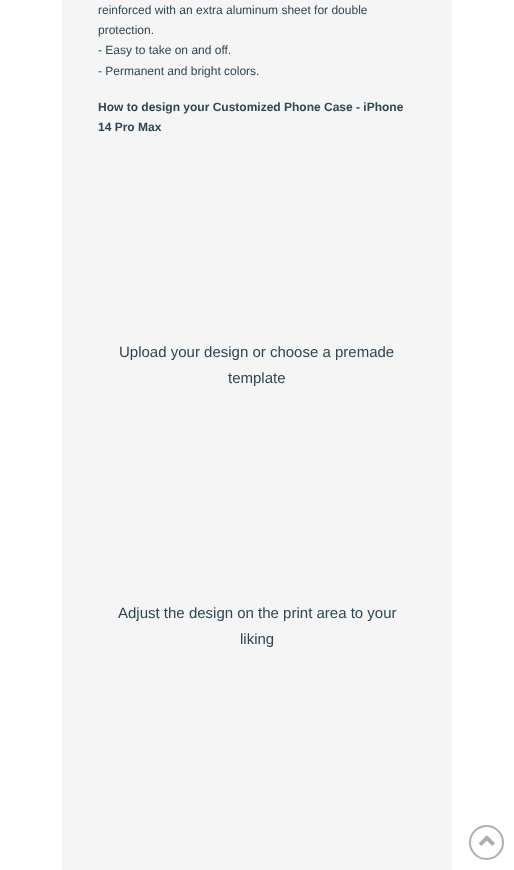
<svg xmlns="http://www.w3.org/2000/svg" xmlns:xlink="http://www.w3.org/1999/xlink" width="514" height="870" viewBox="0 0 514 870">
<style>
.cls-1{font:12px Liberation Sans;fill:#2d4654}
.cls-2{font:bold 12px Liberation Sans;fill:#2d4654}
.cls-3{font:15px Liberation Sans;fill:#2d4654}
</style>
<rect width="100%" height="100%" fill="#ffffff"/>
<rect fill="#f5f5f5" x="62" y="0" width="390" height="870"/>
<circle fill="none" stroke="#aeaeae" stroke-width="2" cx="486.5" cy="842.5" r="16.5"/>
<image xlink:href="image0.png" x="479" y="835" width="16" height="11"/>
<text class="cls-1"><tspan x="98" y="14">reinforced with an extra aluminum sheet for double</tspan><tspan x="98" y="34">protection.</tspan><tspan x="98" y="54">- Easy to take on and off.</tspan><tspan x="98" y="75">- Permanent and bright colors.</tspan></text>
<text class="cls-2"><tspan x="98" y="111">How to design your Customized Phone Case - iPhone</tspan><tspan x="98" y="131">14 Pro Max</tspan></text>
<text class="cls-3" x="119" y="357">Upload your design or choose a premade</text>
<text class="cls-3" x="228" y="383">template</text>
<text class="cls-3" x="118" y="618">Adjust the design on the print area to your</text>
<text class="cls-3" x="240" y="644">liking</text>
</svg>
